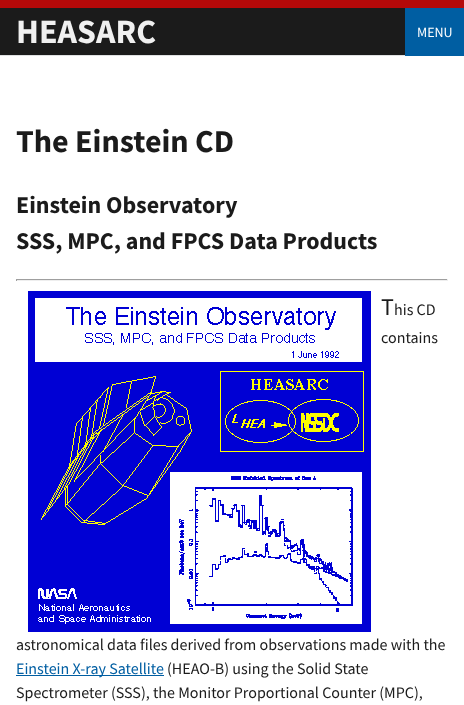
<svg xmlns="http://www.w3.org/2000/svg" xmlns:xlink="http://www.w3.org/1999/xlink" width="464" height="705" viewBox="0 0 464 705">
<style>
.cls-1{font:bold 34px Source Sans Pro;fill:#f0f0f0}
.cls-2{font:14px Source Sans Pro;fill:#ffffff}
.cls-3{font:bold 32px Source Sans Pro;fill:#1b1b1b}
.cls-4{font:bold 24px Source Sans Pro;fill:#1b1b1b}
.cls-5{font:24px Source Sans Pro;fill:#1b1b1b}
.cls-6{font:16px Source Sans Pro;fill:#1b1b1b}
.cls-7{font:16px Source Sans Pro;fill:#005ea2}
</style>
<rect width="100%" height="100%" fill="#ffffff"/>
<rect fill="#1b1b1b" x="0" y="8" width="405" height="47"/>
<rect fill="#b50909" x="0" y="0" width="464" height="8"/>
<rect fill="#dfe1e2" x="0" y="55" width="405" height="1"/>
<rect fill="#005ea2" x="405" y="8" width="59" height="48"/>
<rect fill="#9f9f9f" x="16" y="279" width="432" height="1"/>
<rect fill="#eeeeee" x="447" y="279" width="1" height="2"/>
<rect fill="#eeeeee" x="16" y="280" width="432" height="1"/>
<rect fill="#9f9f9f" x="16" y="279" width="1" height="2"/>
<image xlink:href="image0.png" x="28" y="291" width="343" height="341"/>
<rect fill="#005ea2" x="16" y="675" width="148" height="1"/>
<text class="cls-1" x="16" y="43">HEASARC</text>
<text class="cls-2" x="417" y="37">MENU</text>
<text class="cls-3" x="16" y="152">The Einstein CD</text>
<text class="cls-4"><tspan x="16" y="213">Einstein Observatory</tspan><tspan x="16" y="249">SSS, MPC, and FPCS Data Products</tspan></text>
<text class="cls-5" x="381" y="315">T</text>
<text class="cls-6" x="394" y="315">his CD</text>
<text class="cls-6" x="381" y="343">contains</text>
<text class="cls-6" x="16" y="650">astronomical data files derived from observations made with the</text>
<text class="cls-7" x="16" y="674">Einstein X-ray Satellite</text>
<text class="cls-6" x="167" y="674">(HEAO-B) using the Solid State</text>
<text class="cls-6" x="16" y="698">Spectrometer (SSS), the Monitor Proportional Counter (MPC),</text>
</svg>
